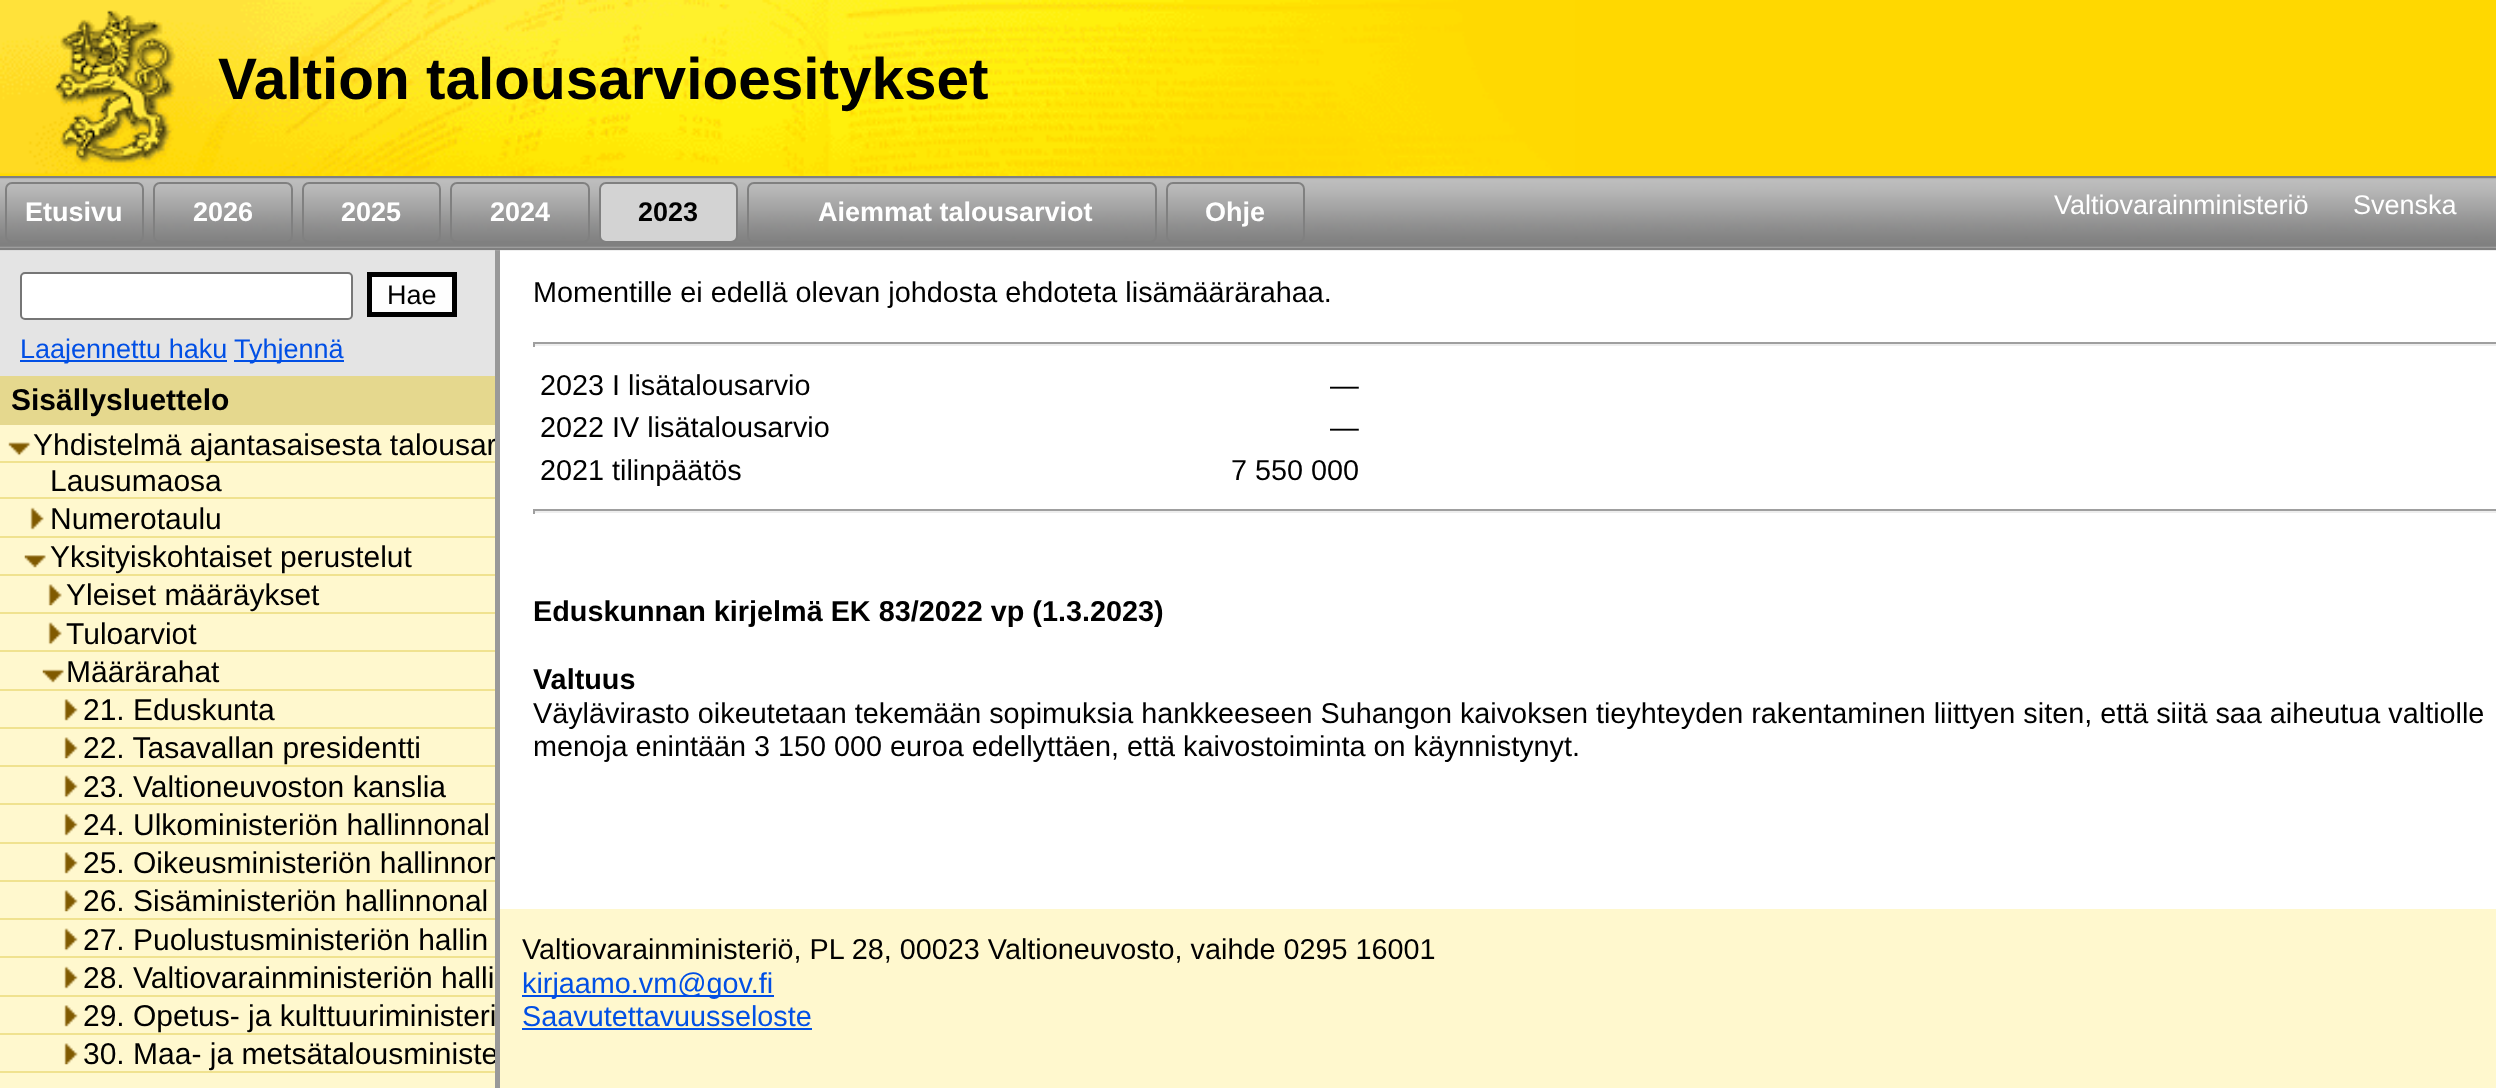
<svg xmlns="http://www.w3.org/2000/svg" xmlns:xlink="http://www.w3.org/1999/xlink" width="2496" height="1088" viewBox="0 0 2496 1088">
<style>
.cls-1{font:bold 58.5px Liberation Sans;fill:#000000}
.cls-2{font:bold 27px Liberation Sans;fill:#ffffff}
.cls-3{font:bold 27px Liberation Sans;fill:#000000}
.cls-4{font:27px Liberation Sans;fill:#ffffff}
.cls-5{font:27px Liberation Sans;fill:#000000}
.cls-6{font:27px Liberation Sans;fill:#014fe5}
.cls-7{font:bold 30px Liberation Sans;fill:#000000}
.cls-8{font:30px Liberation Sans;fill:#000000}
.cls-9{font:28.8px Liberation Sans;fill:#000000}
.cls-10{font:bold 28.8px Liberation Sans;fill:#000000}
.cls-11{font:28.8px Liberation Sans;fill:#014fe5}
</style>
<defs>
<clipPath id="clip1"><rect x="0" y="376" width="495" height="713"/></clipPath>
</defs>
<rect width="100%" height="100%" fill="#fff8ce"/>
<image xlink:href="image0.png" x="0" y="0" width="1575" height="176"/>
<rect fill="#ffd800" x="1575" y="0" width="921" height="176"/>
<rect fill="#e4e4e4" x="0" y="250" width="495" height="126"/>
<rect fill="#999999" x="495" y="248" width="5" height="840"/>
<rect fill="#ffffff" x="500" y="250" width="1996" height="659"/>
<image xlink:href="image1.png" x="0" y="178" width="2496" height="73"/>
<rect fill="#808080" x="0" y="176" width="2496" height="2"/>
<rect fill="#808080" x="0" y="248" width="2496" height="2"/>
<rect fill="none" stroke="#808080" stroke-width="2" x="6" y="183" width="137" height="59" rx="6"/>
<rect fill="none" stroke="#808080" stroke-width="2" x="154" y="183" width="138" height="59" rx="6"/>
<rect fill="none" stroke="#808080" stroke-width="2" x="303" y="183" width="137" height="59" rx="6"/>
<rect fill="none" stroke="#808080" stroke-width="2" x="451" y="183" width="138" height="59" rx="6"/>
<rect fill="#d3d3d3" stroke="#808080" stroke-width="2" x="600" y="183" width="137" height="59" rx="6"/>
<rect fill="none" stroke="#808080" stroke-width="2" x="748" y="183" width="408" height="59" rx="6"/>
<rect fill="none" stroke="#808080" stroke-width="2" x="1167" y="183" width="137" height="59" rx="6"/>
<rect fill="#ffffff" stroke="#767676" stroke-width="2" x="21" y="273" width="331" height="46" rx="4"/>
<rect fill="#fefefe" stroke="#000000" stroke-width="5" x="369.5" y="274.5" width="85" height="40"/>
<rect fill="#014fe5" x="20" y="360" width="207" height="2"/>
<rect fill="#014fe5" x="234" y="360" width="110" height="2"/>
<rect fill="#e5d88e" x="0" y="376" width="495" height="49"/>
<rect fill="#f0e28f" x="0" y="461" width="495" height="2"/>
<image xlink:href="image2.png" x="8" y="442" width="23" height="14"/>
<rect fill="#f0e28f" x="0" y="497" width="495" height="2"/>
<rect fill="#f0e28f" x="0" y="536" width="495" height="2"/>
<image xlink:href="image3.png" x="30" y="507" width="14" height="23"/>
<rect fill="#f0e28f" x="0" y="574" width="495" height="2"/>
<image xlink:href="image4.png" x="24" y="555" width="22" height="13"/>
<rect fill="#f0e28f" x="0" y="612" width="495" height="2"/>
<image xlink:href="image5.png" x="48" y="584" width="14" height="22"/>
<rect fill="#f0e28f" x="0" y="650" width="495" height="2"/>
<image xlink:href="image6.png" x="48" y="622" width="14" height="23"/>
<rect fill="#f0e28f" x="0" y="689" width="495" height="2"/>
<image xlink:href="image7.png" x="42" y="669" width="22" height="14"/>
<rect fill="#f0e28f" x="0" y="727" width="495" height="2"/>
<image xlink:href="image8.png" x="64" y="699" width="14" height="22"/>
<rect fill="#f0e28f" x="0" y="765" width="495" height="2"/>
<image xlink:href="image9.png" x="64" y="737" width="14" height="22"/>
<rect fill="#f0e28f" x="0" y="803" width="495" height="2"/>
<image xlink:href="image10.png" x="64" y="775" width="14" height="23"/>
<rect fill="#f0e28f" x="0" y="842" width="495" height="2"/>
<image xlink:href="image11.png" x="64" y="813" width="14" height="23"/>
<rect fill="#f0e28f" x="0" y="880" width="495" height="2"/>
<image xlink:href="image8.png" x="64" y="852" width="14" height="22"/>
<rect fill="#f0e28f" x="0" y="918" width="495" height="2"/>
<image xlink:href="image9.png" x="64" y="890" width="14" height="22"/>
<rect fill="#f0e28f" x="0" y="956" width="495" height="2"/>
<image xlink:href="image12.png" x="64" y="928" width="14" height="23"/>
<rect fill="#f0e28f" x="0" y="995" width="495" height="2"/>
<image xlink:href="image11.png" x="64" y="966" width="14" height="23"/>
<rect fill="#f0e28f" x="0" y="1033" width="495" height="2"/>
<image xlink:href="image13.png" x="64" y="1005" width="14" height="22"/>
<rect fill="#f0e28f" x="0" y="1071" width="495" height="2"/>
<image xlink:href="image9.png" x="64" y="1043" width="14" height="22"/>
<rect fill="#9f9f9f" x="533" y="342" width="1963" height="2"/>
<rect fill="#eeeeee" x="533" y="344" width="1963" height="2"/>
<rect fill="#9f9f9f" x="533" y="342" width="2" height="5"/>
<rect fill="#9f9f9f" x="533" y="509" width="1963" height="2"/>
<rect fill="#eeeeee" x="533" y="511" width="1963" height="2"/>
<rect fill="#9f9f9f" x="533" y="509" width="2" height="5"/>
<rect fill="#014fe5" x="522" y="995" width="252" height="2"/>
<rect fill="#014fe5" x="522" y="1028" width="290" height="2"/>
<text class="cls-1" x="218" y="99">Valtion talousarvioesitykset</text>
<text class="cls-2" x="25" y="221">Etusivu</text>
<text class="cls-2" x="193" y="221">2026</text>
<text class="cls-2" x="341" y="221">2025</text>
<text class="cls-2" x="490" y="221">2024</text>
<text class="cls-3" x="638" y="221">2023</text>
<text class="cls-2" x="818" y="221">Aiemmat talousarviot</text>
<text class="cls-2" x="1205" y="221">Ohje</text>
<text class="cls-4" x="2054" y="214">Valtiovarainministeriö</text>
<text class="cls-4" x="2353" y="214">Svenska</text>
<text class="cls-5" x="387" y="304">Hae</text>
<text class="cls-6" x="20" y="358">Laajennettu haku</text>
<text class="cls-6" x="234" y="358">Tyhjennä</text>
<text class="cls-7" x="11" y="410">Sisällysluettelo</text>
<g clip-path="url(#clip1)">
<text class="cls-8" x="33" y="455">Yhdistelmä ajantasaisesta talousar</text>
</g>
<text class="cls-8"><tspan x="50" y="491">Lausumaosa</tspan><tspan x="50" y="529">Numerotaulu</tspan><tspan x="50" y="567">Yksityiskohtaiset perustelut</tspan></text>
<text class="cls-8"><tspan x="66" y="605">Yleiset määräykset</tspan><tspan x="66" y="644">Tuloarviot</tspan><tspan x="66" y="682">Määrärahat</tspan></text>
<text class="cls-8"><tspan x="83" y="720">21. Eduskunta</tspan><tspan x="83" y="758">22. Tasavallan presidentti</tspan><tspan x="83" y="797">23. Valtioneuvoston kanslia</tspan><tspan x="83" y="835">24. Ulkoministeriön hallinnonal</tspan></text>
<g clip-path="url(#clip1)">
<text class="cls-8" x="83" y="873">25. Oikeusministeriön hallinnon</text>
</g>
<text class="cls-8"><tspan x="83" y="911">26. Sisäministeriön hallinnonal</tspan><tspan x="83" y="950">27. Puolustusministeriön hallin</tspan><tspan x="83" y="988">28. Valtiovarainministeriön halli</tspan><tspan x="83" y="1026">29. Opetus- ja kulttuuriministeri</tspan></text>
<g clip-path="url(#clip1)">
<text class="cls-8" x="83" y="1064">30. Maa- ja metsätalousministe</text>
</g>
<text class="cls-9" x="533" y="302">Momentille ei edellä olevan johdosta ehdoteta lisämäärärahaa.</text>
<text class="cls-9" x="540" y="395">2023 I lisätalousarvio</text>
<text class="cls-9" x="1330" y="395">—</text>
<text class="cls-9" x="540" y="437">2022 IV lisätalousarvio</text>
<text class="cls-9" x="1330" y="437">—</text>
<text class="cls-9" x="540" y="480">2021 tilinpäätös</text>
<text class="cls-9" x="1231" y="480">7 550 000</text>
<text class="cls-10" x="533" y="621">Eduskunnan kirjelmä EK 83/2022 vp (1.3.2023)</text>
<text class="cls-10" x="533" y="689">Valtuus</text>
<text class="cls-9"><tspan x="533" y="723">Väylävirasto oikeutetaan tekemään sopimuksia hankkeeseen Suhangon kaivoksen tieyhteyden rakentaminen liittyen siten, että siitä saa aiheutua valtiolle</tspan><tspan x="533" y="756">menoja enintään 3 150 000 euroa edellyttäen, että kaivostoiminta on käynnistynyt.</tspan></text>
<text class="cls-9" x="522" y="959">Valtiovarainministeriö, PL 28, 00023 Valtioneuvosto, vaihde 0295 16001</text>
<text class="cls-11"><tspan x="522" y="993">kirjaamo.vm@gov.fi</tspan><tspan x="522" y="1026">Saavutettavuusseloste</tspan></text>
</svg>
